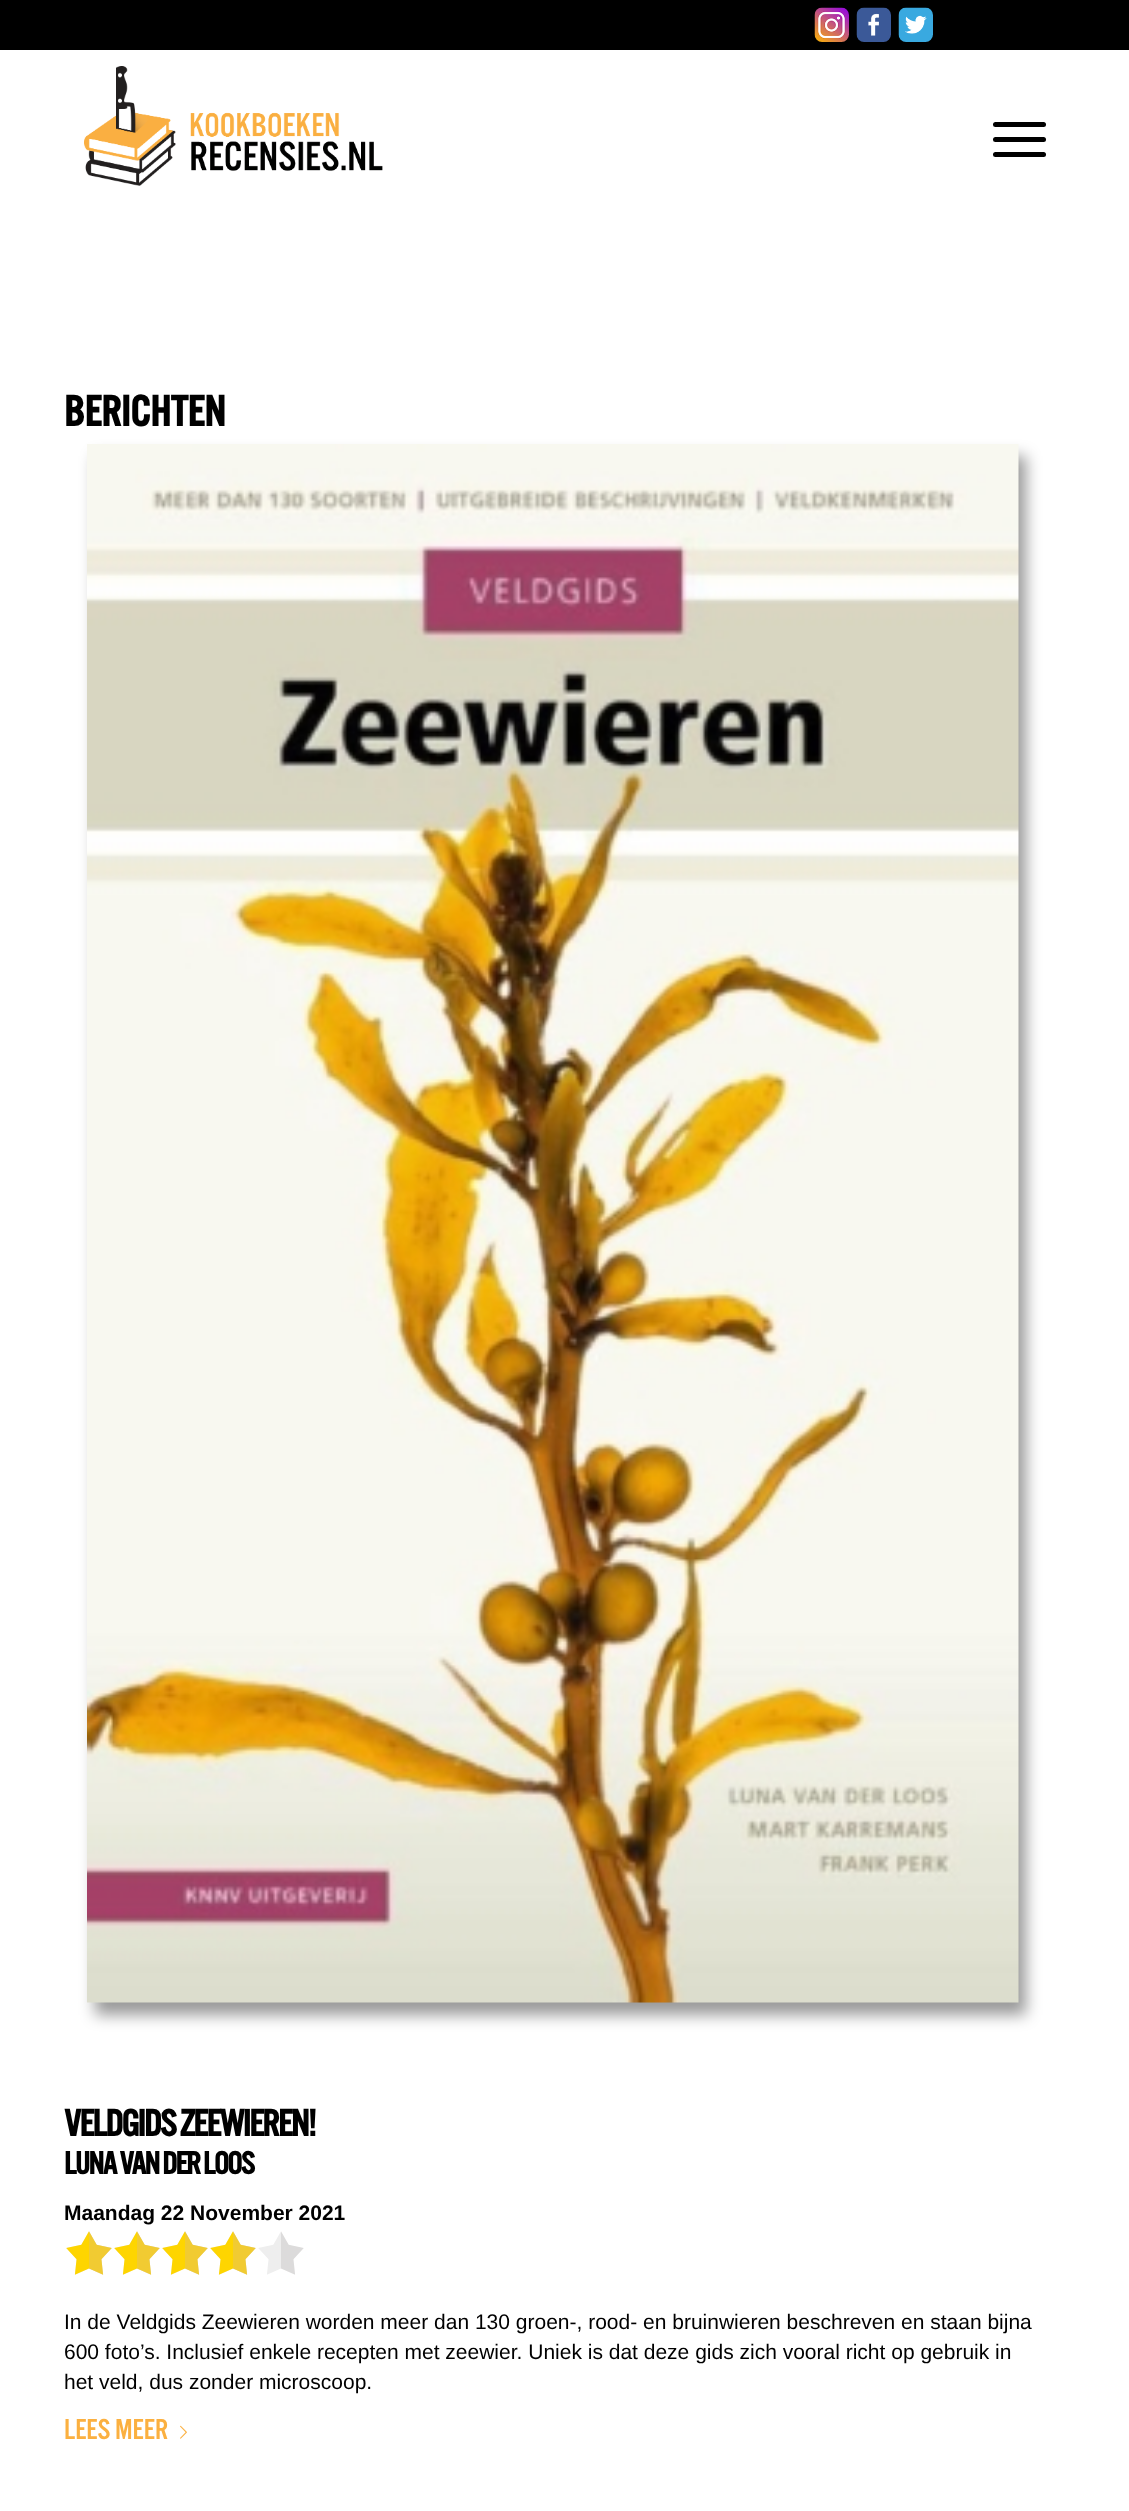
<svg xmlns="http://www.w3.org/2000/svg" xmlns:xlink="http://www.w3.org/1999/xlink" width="1129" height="2511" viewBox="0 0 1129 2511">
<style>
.cls-1{font:bold 45px 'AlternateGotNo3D';fill:#000000}
.cls-2{font:bold 39px 'AlternateGotNo3D';letter-spacing:-1.5px;fill:#000000}
.cls-3{font:bold 33px 'AlternateGotNo3D';letter-spacing:-1.5px;fill:#000000}
.cls-4{font:bold 21px Liberation Sans;fill:#000000}
.cls-5{font:21px Liberation Sans;fill:#000000}
.cls-6{font:30px 'AlternateGotNo3D';fill:#fbb040}
</style>
<rect width="100%" height="100%" fill="#ffffff"/>
<rect fill="#000000" x="0" y="0" width="1129" height="50"/>
<image xlink:href="image0.png" x="814" y="7" width="35" height="35"/>
<image xlink:href="image1.png" x="856" y="7" width="35" height="35"/>
<image xlink:href="image2.png" x="898" y="7" width="35" height="35"/>
<image xlink:href="image3.png" x="84" y="66" width="299" height="120"/>
<rect fill="#000000" x="993" y="137" width="53" height="5" rx="2.5"/>
<rect fill="#000000" x="993" y="122" width="53" height="5" rx="2.5"/>
<rect fill="#000000" x="993" y="152" width="53" height="5" rx="2.5"/>
<rect fill="#000000" fill-opacity="0.4" filter="blur(7.5px)" x="95" y="456" width="931" height="1559"/>
<image xlink:href="image4.png" x="87" y="444" width="932" height="1559"/>
<image xlink:href="image5.png" x="66" y="2231" width="238" height="44"/>
<image xlink:href="image6.png" x="66" y="2231" width="190" height="44"/>
<image xlink:href="image7.png" x="180" y="2425" width="7" height="14"/>
<text class="cls-1" x="64" y="426">BERICHTEN</text>
<text class="cls-2" x="64" y="2136">VELDGIDS ZEEWIEREN!</text>
<text class="cls-3" x="64" y="2174">LUNA VAN DER LOOS</text>
<text class="cls-4" x="64" y="2220">Maandag 22 November 2021</text>
<text class="cls-5"><tspan x="64" y="2329">In de Veldgids Zeewieren worden meer dan 130 groen-, rood- en bruinwieren beschreven en staan bijna</tspan><tspan x="64" y="2359">600 foto’s. Inclusief enkele recepten met zeewier. Uniek is dat deze gids zich vooral richt op gebruik in</tspan><tspan x="64" y="2389">het veld, dus zonder microscoop.</tspan></text>
<text class="cls-6" x="64" y="2439">LEES MEER</text>
</svg>
